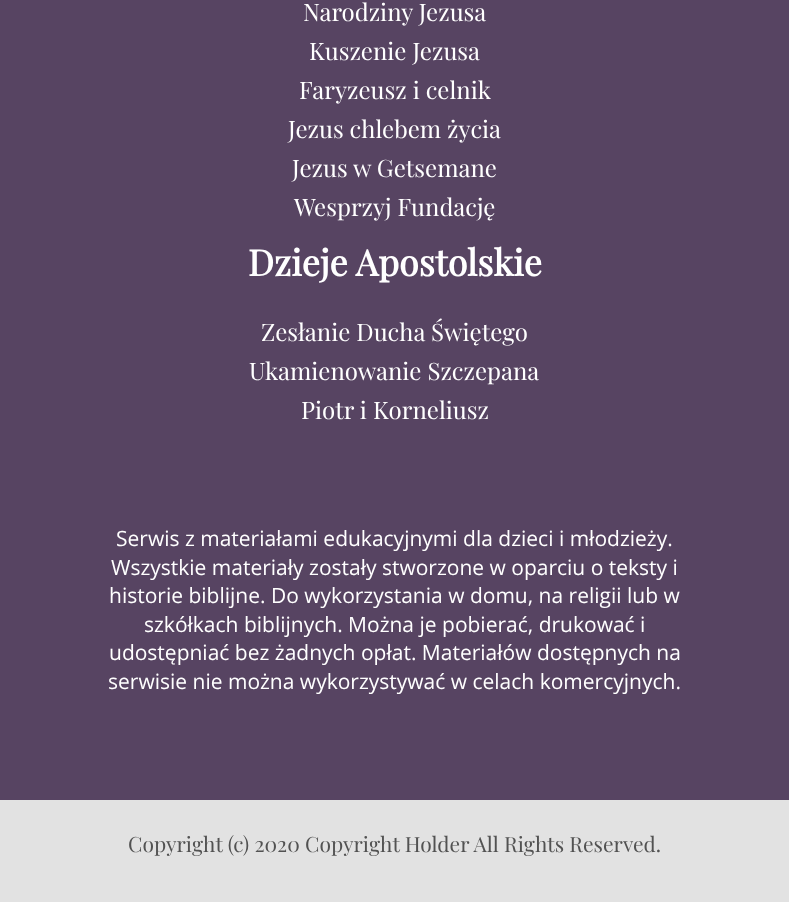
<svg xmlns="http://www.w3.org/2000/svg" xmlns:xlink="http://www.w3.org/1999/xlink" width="789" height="902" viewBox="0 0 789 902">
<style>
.cls-1{font:24px Playfair Display;fill:#ffffff}
.cls-2{font:bold 36px Playfair Display;fill:#ffffff}
.cls-3{font:21px Open Sans;fill:#ffffff}
.cls-4{font:21px Playfair Display;fill:#525252}
</style>
<rect width="100%" height="100%" fill="#e2e2e2"/>
<rect fill="#574462" x="0" y="0" width="789" height="800"/>
<text class="cls-1" x="303" y="21">Narodziny Jezusa</text>
<text class="cls-1" x="309" y="60">Kuszenie Jezusa</text>
<text class="cls-1" x="299" y="99">Faryzeusz i celnik</text>
<text class="cls-1" x="288" y="138">Jezus chlebem życia</text>
<text class="cls-1" x="292" y="177">Jezus w Getsemane</text>
<text class="cls-1" x="294" y="216">Wesprzyj Fundację</text>
<text class="cls-2" x="248" y="276">Dzieje Apostolskie</text>
<text class="cls-1" x="261" y="341">Zesłanie Ducha Świętego</text>
<text class="cls-1" x="249" y="380">Ukamienowanie Szczepana</text>
<text class="cls-1" x="301" y="419">Piotr i Korneliusz</text>
<text class="cls-3" x="116" y="546">Serwis z materiałami edukacyjnymi dla dzieci i młodzieży.</text>
<text class="cls-3" x="111" y="575">Wszystkie materiały zostały stworzone w oparciu o teksty i</text>
<text class="cls-3" x="109" y="603">historie biblijne. Do wykorzystania w domu, na religii lub w</text>
<text class="cls-3" x="144" y="632">szkółkach biblijnych. Można je pobierać, drukować i</text>
<text class="cls-3" x="109" y="660">udostępniać bez żadnych opłat. Materiałów dostępnych na</text>
<text class="cls-3" x="108" y="689">serwisie nie można wykorzystywać w celach komercyjnych.</text>
<text class="cls-4" x="128" y="852">Copyright (c) 2020 Copyright Holder All Rights Reserved.</text>
</svg>
